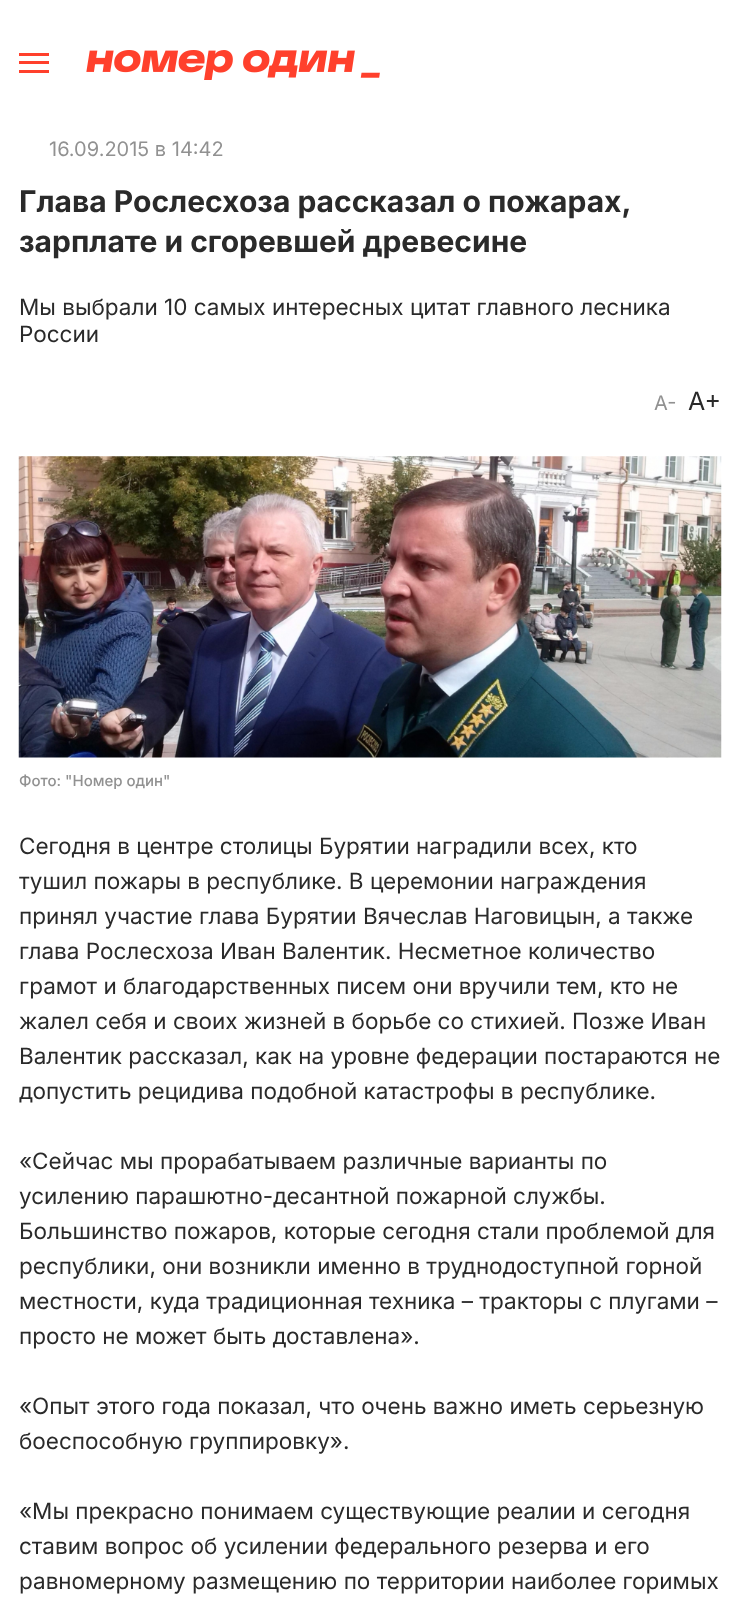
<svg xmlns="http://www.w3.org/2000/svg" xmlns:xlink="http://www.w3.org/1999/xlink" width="740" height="1606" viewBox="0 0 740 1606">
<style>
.cls-1{font:20px Inter;fill:#919191}
.cls-2{font:bold 30px Inter;fill:#2a2a2a}
.cls-3{font:22.5px Inter;fill:#2a2a2a}
.cls-4{font:25px Inter;fill:#2a2a2a}
.cls-5{font:500 15px Inter;fill:#919191}
</style>
<rect width="100%" height="100%" fill="#ffffff"/>
<rect fill="#ff402c" x="19" y="53" width="30" height="3"/>
<rect fill="#ff402c" x="19" y="70" width="30" height="3"/>
<rect fill="#ff402c" x="19" y="61" width="30" height="3"/>
<image xlink:href="image0.png" x="86" y="50" width="294" height="30"/>
<image xlink:href="image1.png" x="18" y="456" width="704" height="302"/>
<text class="cls-1" x="49" y="156">16.09.2015 в 14:42</text>
<text class="cls-2"><tspan x="19" y="212">Глава Рослесхоза рассказал о пожарах,</tspan><tspan x="19" y="252">зарплате и сгоревшей древесине</tspan></text>
<text class="cls-3"><tspan x="19" y="315">Мы выбрали 10 самых интересных цитат главного лесника</tspan><tspan x="19" y="342">России</tspan></text>
<text class="cls-1" x="654" y="410">A-</text>
<text class="cls-4" x="688" y="410">A+</text>
<text class="cls-5" x="19" y="786">Фото: "Номер один"</text>
<text class="cls-3"><tspan x="19" y="854">Сегодня в центре столицы Бурятии наградили всех, кто</tspan><tspan x="19" y="889">тушил пожары в республике. В церемонии награждения</tspan><tspan x="19" y="924">принял участие глава Бурятии Вячеслав Наговицын, а также</tspan><tspan x="19" y="959">глава Рослесхоза Иван Валентик. Несметное количество</tspan><tspan x="19" y="994">грамот и благодарственных писем они вручили тем, кто не</tspan><tspan x="19" y="1029">жалел себя и своих жизней в борьбе со стихией. Позже Иван</tspan><tspan x="19" y="1064">Валентик рассказал, как на уровне федерации постараются не</tspan><tspan x="19" y="1099">допустить рецидива подобной катастрофы в республике.</tspan></text>
<text class="cls-3"><tspan x="19" y="1169">«Сейчас мы прорабатываем различные варианты по</tspan><tspan x="19" y="1204">усилению парашютно-десантной пожарной службы.</tspan><tspan x="19" y="1239">Большинство пожаров, которые сегодня стали проблемой для</tspan><tspan x="19" y="1274">республики, они возникли именно в труднодоступной горной</tspan><tspan x="19" y="1309">местности, куда традиционная техника – тракторы с плугами –</tspan><tspan x="19" y="1344">просто не может быть доставлена».</tspan></text>
<text class="cls-3"><tspan x="19" y="1414">«Опыт этого года показал, что очень важно иметь серьезную</tspan><tspan x="19" y="1449">боеспособную группировку».</tspan></text>
<text class="cls-3"><tspan x="19" y="1519">«Мы прекрасно понимаем существующие реалии и сегодня</tspan><tspan x="19" y="1554">ставим вопрос об усилении федерального резерва и его</tspan><tspan x="19" y="1589">равномерному размещению по территории наиболее горимых</tspan></text>
</svg>
